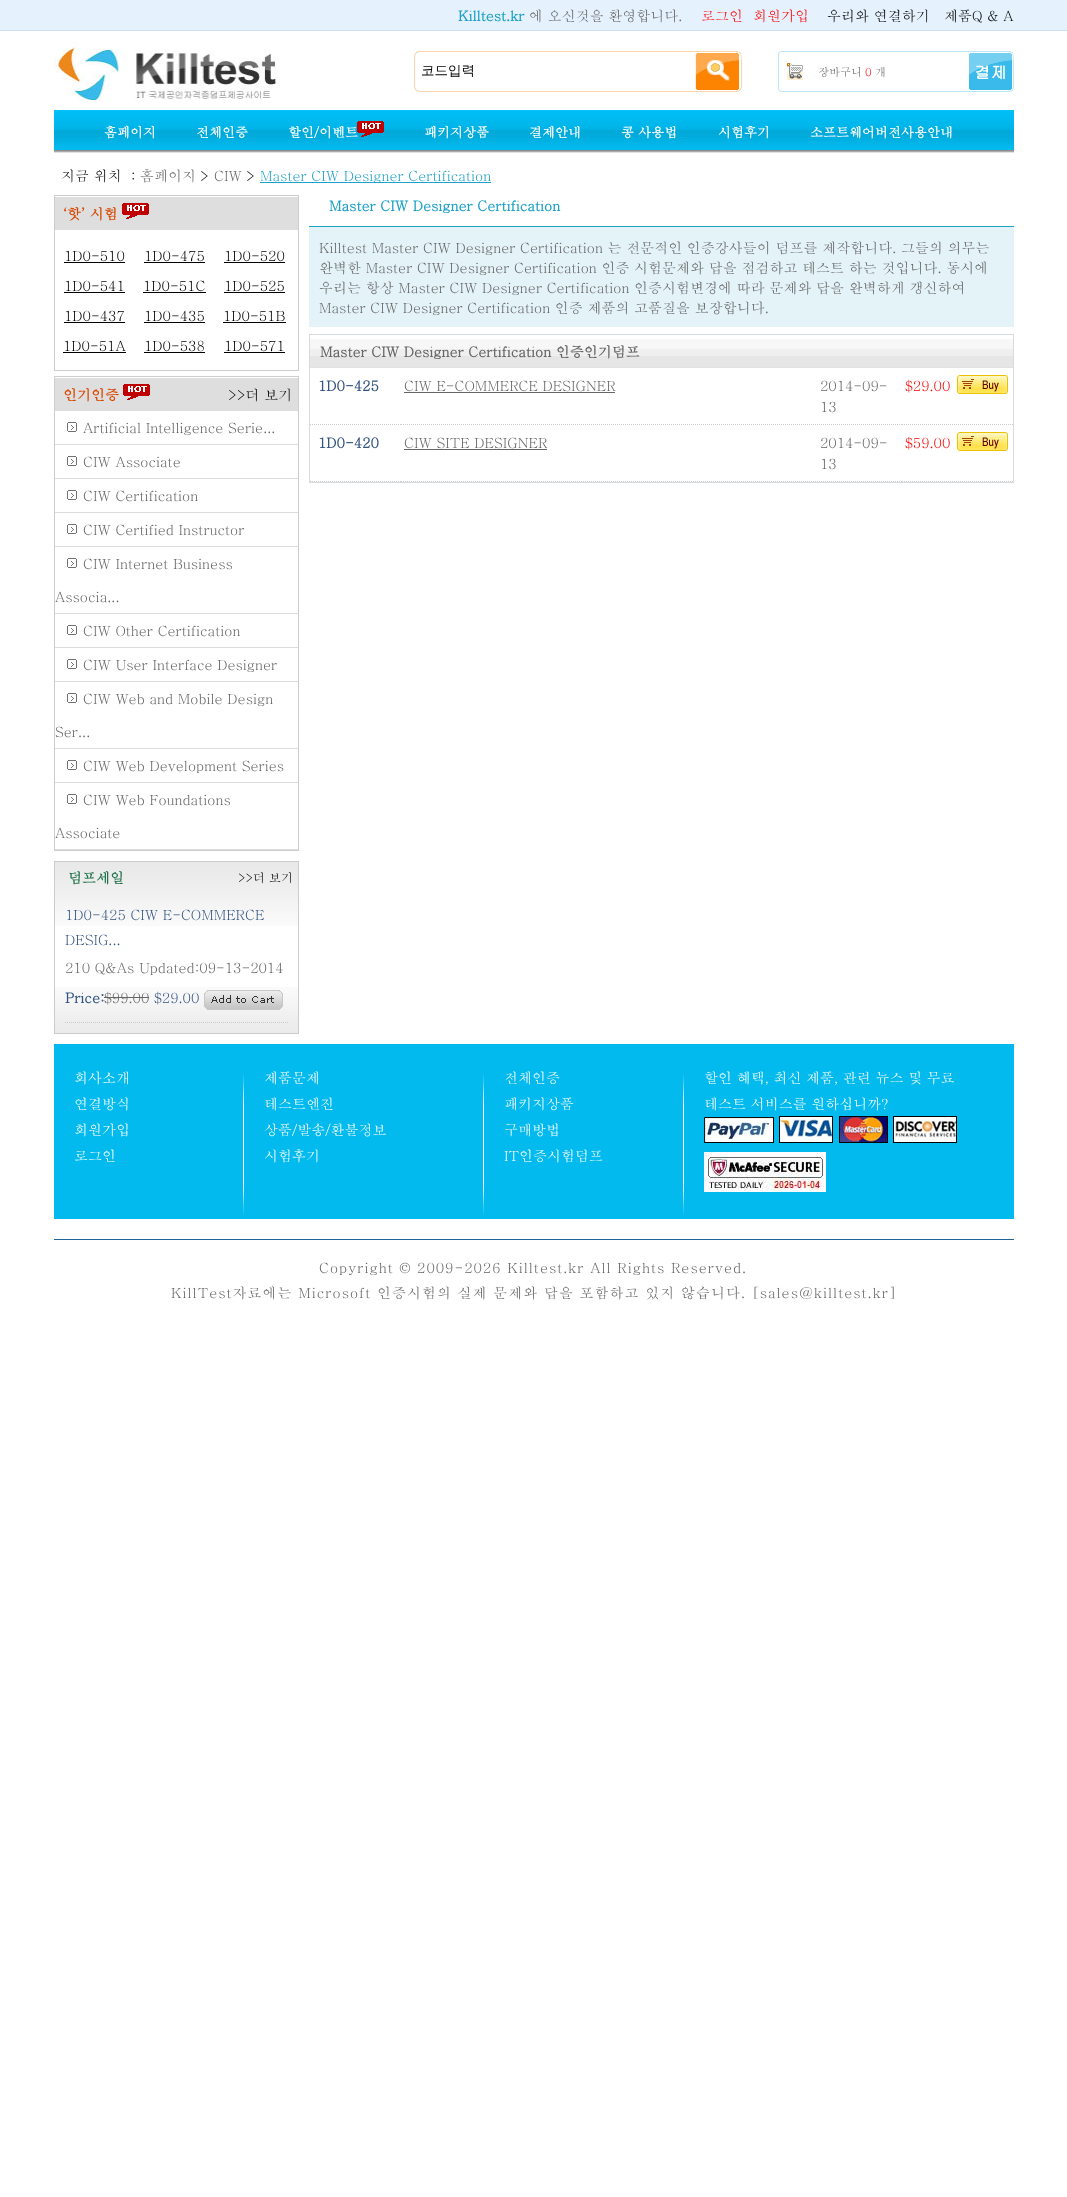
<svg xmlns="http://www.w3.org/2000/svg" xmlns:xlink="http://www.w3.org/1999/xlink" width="1067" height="2197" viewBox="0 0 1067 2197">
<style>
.cls-1{font:bold 14px Batang;fill:#1ea1c7}
.cls-2{font:14px Batang;fill:#666666}
.cls-3{font:14px Batang;fill:#ff0000}
.cls-4{font:14px Batang;fill:#000000}
.cls-5{font:500 13.5px WenQuanYi Zen Hei;fill:#000000}
.cls-6{font:11px Batang;fill:#666666}
.cls-7{font:11px Batang;fill:#ff0000}
.cls-8{font:bold 13px Batang;fill:#ffffff}
.cls-9{font:14px Batang;fill:#1ea1c7}
.cls-10{font:bold 14px Batang;fill:#d84600}
.cls-11{font:bold 14px Batang;fill:#1e7149}
.cls-12{font:12px Batang;fill:#000000}
.cls-13{font:14px Batang;fill:#335480}
.cls-14{font:bold 14px Batang;fill:#335480}
.cls-15{font:bold 14px Batang;fill:#666666}
.cls-16{font:14px Batang;fill:#ffffff}
.cls-17{font:14px Batang;letter-spacing:1px;fill:#666666}
</style>
<rect width="100%" height="100%" fill="#ffffff"/>
<rect fill="#e5f2fd" x="0" y="0" width="1067" height="30"/>
<rect fill="#cedfed" x="0" y="30" width="1067" height="1"/>
<image xlink:href="image0.png" x="54" y="41" width="225" height="59"/>
<image xlink:href="image1.png" x="414" y="51" width="328" height="41"/>
<image xlink:href="image2.png" x="778" y="51" width="236" height="41"/>
<image xlink:href="image3.png" x="54" y="110" width="960" height="43"/>
<image xlink:href="image4.png" x="357" y="121" width="27" height="16"/>
<rect fill="#21a1c9" x="260" y="182" width="231" height="1"/>
<rect fill="none" stroke="#cdcdcd" x="54.5" y="195.5" width="244" height="175"/>
<rect fill="#dedede" x="55" y="197" width="243" height="33"/>
<image xlink:href="image5.png" x="122" y="203" width="27" height="16"/>
<rect fill="#000000" x="64" y="262" width="61" height="1"/>
<rect fill="#000000" x="144" y="262" width="61" height="1"/>
<rect fill="#000000" x="224" y="262" width="61" height="1"/>
<rect fill="#000000" x="64" y="292" width="61" height="1"/>
<rect fill="#000000" x="143" y="292" width="63" height="1"/>
<rect fill="#000000" x="224" y="292" width="61" height="1"/>
<rect fill="#000000" x="64" y="322" width="61" height="1"/>
<rect fill="#000000" x="144" y="322" width="61" height="1"/>
<rect fill="#000000" x="223" y="322" width="63" height="1"/>
<rect fill="#000000" x="63" y="352" width="63" height="1"/>
<rect fill="#000000" x="144" y="352" width="61" height="1"/>
<rect fill="#000000" x="224" y="352" width="61" height="1"/>
<rect fill="none" stroke="#cdcdcd" x="54.5" y="376.5" width="244" height="474"/>
<rect fill="#dedede" x="55" y="378" width="243" height="33"/>
<image xlink:href="image5.png" x="123" y="384" width="27" height="16"/>
<image xlink:href="image6.png" x="67" y="422" width="10" height="10"/>
<rect fill="#dddddd" x="55" y="444" width="243" height="1"/>
<image xlink:href="image6.png" x="67" y="456" width="10" height="10"/>
<rect fill="#dddddd" x="55" y="478" width="243" height="1"/>
<image xlink:href="image6.png" x="67" y="490" width="10" height="10"/>
<rect fill="#dddddd" x="55" y="512" width="243" height="1"/>
<image xlink:href="image6.png" x="67" y="524" width="10" height="10"/>
<rect fill="#dddddd" x="55" y="546" width="243" height="1"/>
<image xlink:href="image6.png" x="67" y="558" width="10" height="10"/>
<rect fill="#dddddd" x="55" y="613" width="243" height="1"/>
<image xlink:href="image6.png" x="67" y="625" width="10" height="10"/>
<rect fill="#dddddd" x="55" y="647" width="243" height="1"/>
<image xlink:href="image6.png" x="67" y="659" width="10" height="10"/>
<rect fill="#dddddd" x="55" y="681" width="243" height="1"/>
<image xlink:href="image6.png" x="67" y="693" width="10" height="10"/>
<rect fill="#dddddd" x="55" y="748" width="243" height="1"/>
<image xlink:href="image6.png" x="67" y="760" width="10" height="10"/>
<rect fill="#dddddd" x="55" y="782" width="243" height="1"/>
<image xlink:href="image6.png" x="67" y="794" width="10" height="10"/>
<rect fill="#dddddd" x="55" y="849" width="243" height="1"/>
<image xlink:href="image7.png" x="55" y="862" width="243" height="64"/>
<rect fill="none" stroke="#cccccc" x="54.5" y="861.5" width="244" height="172"/>
<image xlink:href="image8.png" x="55" y="987" width="243" height="46"/>
<path fill="none" stroke="#cccccc" stroke-dasharray="1 1" d="M65 1022.5H288"/>
<rect fill="#666666" x="104" y="997" width="45" height="1"/>
<image xlink:href="image9.png" x="204" y="990" width="79" height="20"/>
<rect fill="#1ea1c7" x="309" y="226" width="705" height="1"/>
<rect fill="#e4f3f8" x="309" y="227" width="705" height="100"/>
<image xlink:href="image10.png" x="310" y="339" width="703" height="29"/>
<rect fill="#d6dbdf" x="309" y="334" width="705" height="1"/>
<rect fill="#d6dbdf" x="1013" y="334" width="1" height="149"/>
<rect fill="#d6dbdf" x="309" y="334" width="1" height="34"/>
<rect fill="#d6dbdf" x="309" y="482" width="705" height="1"/>
<rect fill="#d6dbdf" x="309" y="368" width="1" height="115"/>
<path fill="none" stroke="#cccccc" stroke-dasharray="1 1" d="M310 424.5H401"/>
<path fill="none" stroke="#cccccc" stroke-dasharray="1 1" d="M401 424.5H817"/>
<rect fill="#666666" x="404" y="392" width="211" height="1"/>
<path fill="none" stroke="#cccccc" stroke-dasharray="1 1" d="M817 424.5H902"/>
<path fill="none" stroke="#cccccc" stroke-dasharray="1 1" d="M902 424.5H954"/>
<path fill="none" stroke="#cccccc" stroke-dasharray="1 1" d="M954 424.5H1013"/>
<image xlink:href="image11.png" x="957" y="375" width="51" height="19"/>
<path fill="none" stroke="#cccccc" stroke-dasharray="1 1" d="M310 481.5H401"/>
<path fill="none" stroke="#cccccc" stroke-dasharray="1 1" d="M401 481.5H817"/>
<rect fill="#666666" x="404" y="449" width="143" height="1"/>
<path fill="none" stroke="#cccccc" stroke-dasharray="1 1" d="M817 481.5H902"/>
<path fill="none" stroke="#cccccc" stroke-dasharray="1 1" d="M902 481.5H954"/>
<path fill="none" stroke="#cccccc" stroke-dasharray="1 1" d="M954 481.5H1013"/>
<image xlink:href="image11.png" x="957" y="432" width="51" height="19"/>
<rect fill="#02baee" x="54" y="1044" width="960" height="175"/>
<image xlink:href="image12.png" x="243" y="1073" width="1" height="143"/>
<image xlink:href="image12.png" x="483" y="1073" width="1" height="143"/>
<image xlink:href="image12.png" x="683" y="1073" width="1" height="143"/>
<image xlink:href="image13.png" x="704" y="1116" width="253" height="27"/>
<image xlink:href="image14.png" x="704" y="1152" width="122" height="40"/>
<rect fill="#1f6599" x="54" y="1239" width="960" height="1"/>
<text class="cls-1" x="458" y="21">Killtest.kr</text>
<text class="cls-2" x="529" y="21">에 오신것을 환영합니다.</text>
<text class="cls-3" x="701" y="21">로그인</text>
<text class="cls-3" x="753" y="21">회원가입</text>
<text class="cls-4" x="827" y="21">우리와 연결하기</text>
<text class="cls-4" x="944" y="21">제품Q &amp; A</text>
<text class="cls-5" x="421" y="75">코드입력</text>
<text class="cls-6" x="818" y="76">장바구니</text>
<text class="cls-7" x="865" y="76">0</text>
<text class="cls-6" x="875" y="76">개</text>
<text class="cls-8" x="104" y="137">홈페이지</text>
<text class="cls-8" x="196" y="137">전체인증</text>
<text class="cls-8" x="288" y="137">할인/이벤트</text>
<text class="cls-8" x="424" y="137">패키지상품</text>
<text class="cls-8" x="529" y="137">결제안내</text>
<text class="cls-8" x="621" y="137">콩 사용법</text>
<text class="cls-8" x="718" y="137">시험후기</text>
<text class="cls-8" x="810" y="137">소프트웨어버전사용안내</text>
<text class="cls-4" x="61" y="181">지금 위치 ：</text>
<text class="cls-2" x="140" y="181">홈페이지</text>
<text class="cls-4" x="200" y="181">&gt;</text>
<text class="cls-2" x="214" y="181">CIW</text>
<text class="cls-4" x="246" y="181">&gt;</text>
<text class="cls-9" x="260" y="181">Master CIW Designer Certification</text>
<text class="cls-10" x="63" y="219">‘핫’ 시험</text>
<text class="cls-4" x="64" y="261">1D0-510</text>
<text class="cls-4" x="144" y="261">1D0-475</text>
<text class="cls-4" x="224" y="261">1D0-520</text>
<text class="cls-4" x="64" y="291">1D0-541</text>
<text class="cls-4" x="143" y="291">1D0-51C</text>
<text class="cls-4" x="224" y="291">1D0-525</text>
<text class="cls-4" x="64" y="321">1D0-437</text>
<text class="cls-4" x="144" y="321">1D0-435</text>
<text class="cls-4" x="223" y="321">1D0-51B</text>
<text class="cls-4" x="63" y="351">1D0-51A</text>
<text class="cls-4" x="144" y="351">1D0-538</text>
<text class="cls-4" x="224" y="351">1D0-571</text>
<text class="cls-10" x="63" y="400">인기인증</text>
<text class="cls-4" x="228" y="400">&gt;&gt;더 보기</text>
<text class="cls-2" x="83" y="433">Artificial Intelligence Serie...</text>
<text class="cls-2" x="83" y="467">CIW Associate</text>
<text class="cls-2" x="83" y="501">CIW Certification</text>
<text class="cls-2" x="83" y="535">CIW Certified Instructor</text>
<text class="cls-2" x="83" y="569">CIW Internet Business</text>
<text class="cls-2" x="55" y="602">Associa...</text>
<text class="cls-2" x="83" y="636">CIW Other Certification</text>
<text class="cls-2" x="83" y="670">CIW User Interface Designer</text>
<text class="cls-2" x="83" y="704">CIW Web and Mobile Design</text>
<text class="cls-2" x="55" y="737">Ser...</text>
<text class="cls-2" x="83" y="771">CIW Web Development Series</text>
<text class="cls-2" x="83" y="805">CIW Web Foundations</text>
<text class="cls-2" x="55" y="838">Associate</text>
<text class="cls-11" x="68" y="883">덤프세일</text>
<text class="cls-12" x="238" y="882">&gt;&gt;더 보기</text>
<text class="cls-13"><tspan x="65" y="920">1D0-425 CIW E-COMMERCE</tspan><tspan x="65" y="945">DESIG...</tspan></text>
<text class="cls-2" x="65" y="973">210 Q&amp;As Updated:09-13-2014</text>
<text class="cls-14" x="65" y="1003">Price:</text>
<text class="cls-2" x="104" y="1003">$99.00</text>
<text class="cls-13" x="154" y="1003">$29.00</text>
<text class="cls-1" x="329" y="211">Master CIW Designer Certification</text>
<text class="cls-2"><tspan x="319" y="253">Killtest Master CIW Designer Certification 는 전문적인 인증강사들이 덤프를 제작합니다. 그들의 의무는</tspan><tspan x="319" y="273">완벽한 Master CIW Designer Certification 인증 시험문제와 답을 점검하고 테스트 하는 것입니다. 동시에</tspan><tspan x="319" y="293">우리는 항상 Master CIW Designer Certification 인증시험변경에 따라 문제와 답을 완벽하게 갱신하여</tspan><tspan x="319" y="313">Master CIW Designer Certification 인증 제품의 고품질을 보장합니다.</tspan></text>
<text class="cls-15" x="320" y="357">Master CIW Designer Certification 인증인기덤프</text>
<text class="cls-14" x="318" y="391">1D0-425</text>
<text class="cls-2" x="404" y="391">CIW E-COMMERCE DESIGNER</text>
<text class="cls-2"><tspan x="820" y="391">2014-09-</tspan><tspan x="820" y="412">13</tspan></text>
<text class="cls-3" x="905" y="391">$29.00</text>
<text class="cls-14" x="318" y="448">1D0-420</text>
<text class="cls-2" x="404" y="448">CIW SITE DESIGNER</text>
<text class="cls-2"><tspan x="820" y="448">2014-09-</tspan><tspan x="820" y="469">13</tspan></text>
<text class="cls-3" x="905" y="448">$59.00</text>
<text class="cls-16"><tspan x="74" y="1083">회사소개</tspan><tspan x="74" y="1109">연결방식</tspan><tspan x="74" y="1135">회원가입</tspan><tspan x="74" y="1161">로그인</tspan></text>
<text class="cls-16"><tspan x="264" y="1083">제품문제</tspan><tspan x="264" y="1109">테스트엔진</tspan><tspan x="264" y="1135">상품/발송/환불정보</tspan><tspan x="264" y="1161">시험후기</tspan></text>
<text class="cls-16"><tspan x="504" y="1083">전체인증</tspan><tspan x="504" y="1109">패키지상품</tspan><tspan x="504" y="1135">구매방법</tspan><tspan x="504" y="1161">IT인증시험덤프</tspan></text>
<text class="cls-16"><tspan x="704" y="1083">할인 혜택, 최신 제품, 관련 뉴스 및 무료</tspan><tspan x="704" y="1109">테스트 서비스를 원하십니까?</tspan></text>
<text class="cls-17" x="319" y="1273">Copyright © 2009-2026 Killtest.kr All Rights Reserved.</text>
<text class="cls-17" x="171" y="1298">KillTest자료에는 Microsoft 인증시험의 실제 문제와 답을 포함하고 있지 않습니다. [sales@killtest.kr]</text>
</svg>
